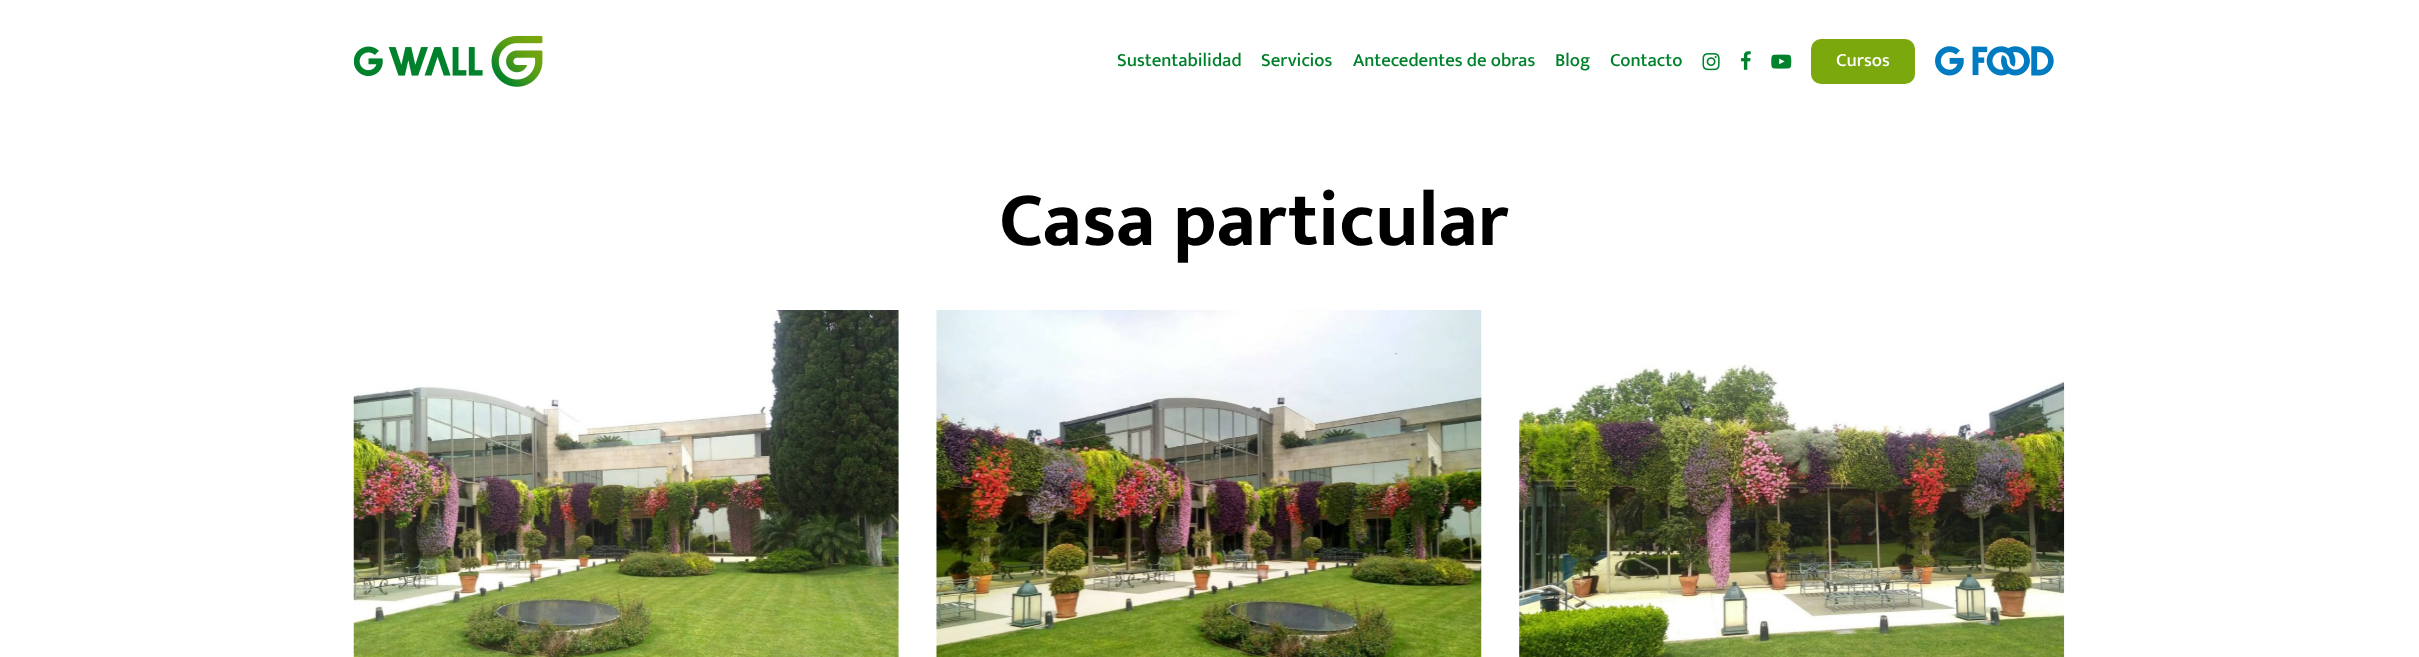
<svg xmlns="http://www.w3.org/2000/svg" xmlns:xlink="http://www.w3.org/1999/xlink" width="2419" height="657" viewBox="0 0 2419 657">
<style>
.cls-1{font:500 18.75px Mukta;fill:#00812c}
.cls-2{font:500 18.75px Mukta;fill:#ffffff}
.cls-3{font:bold 77.5px Mukta;fill:#000000}
</style>
<rect width="100%" height="100%" fill="#ffffff"/>
<image xlink:href="image0.png" x="354" y="35" width="189" height="52"/>
<image xlink:href="image1.png" x="1702" y="53" width="18" height="18"/>
<image xlink:href="image2.png" x="1741" y="51" width="10" height="19"/>
<image xlink:href="image3.png" x="1771" y="54" width="21" height="15"/>
<rect fill="#7aa80d" x="1811" y="39" width="104" height="45" rx="10"/>
<image xlink:href="image4.png" x="1935" y="46" width="119" height="30"/>
<image xlink:href="image5.png" x="353" y="310" width="546" height="347"/>
<image xlink:href="image6.png" x="936" y="310" width="546" height="347"/>
<image xlink:href="image7.png" x="1519" y="361" width="546" height="296"/>
<text class="cls-1" x="1117" y="66">Sustentabilidad</text>
<text class="cls-1" x="1261" y="66">Servicios</text>
<text class="cls-1" x="1353" y="66">Antecedentes de obras</text>
<text class="cls-1" x="1555" y="66">Blog</text>
<text class="cls-1" x="1610" y="66">Contacto</text>
<text class="cls-2" x="1836" y="66">Cursos</text>
<text class="cls-3" x="999" y="245">Casa particular</text>
</svg>
